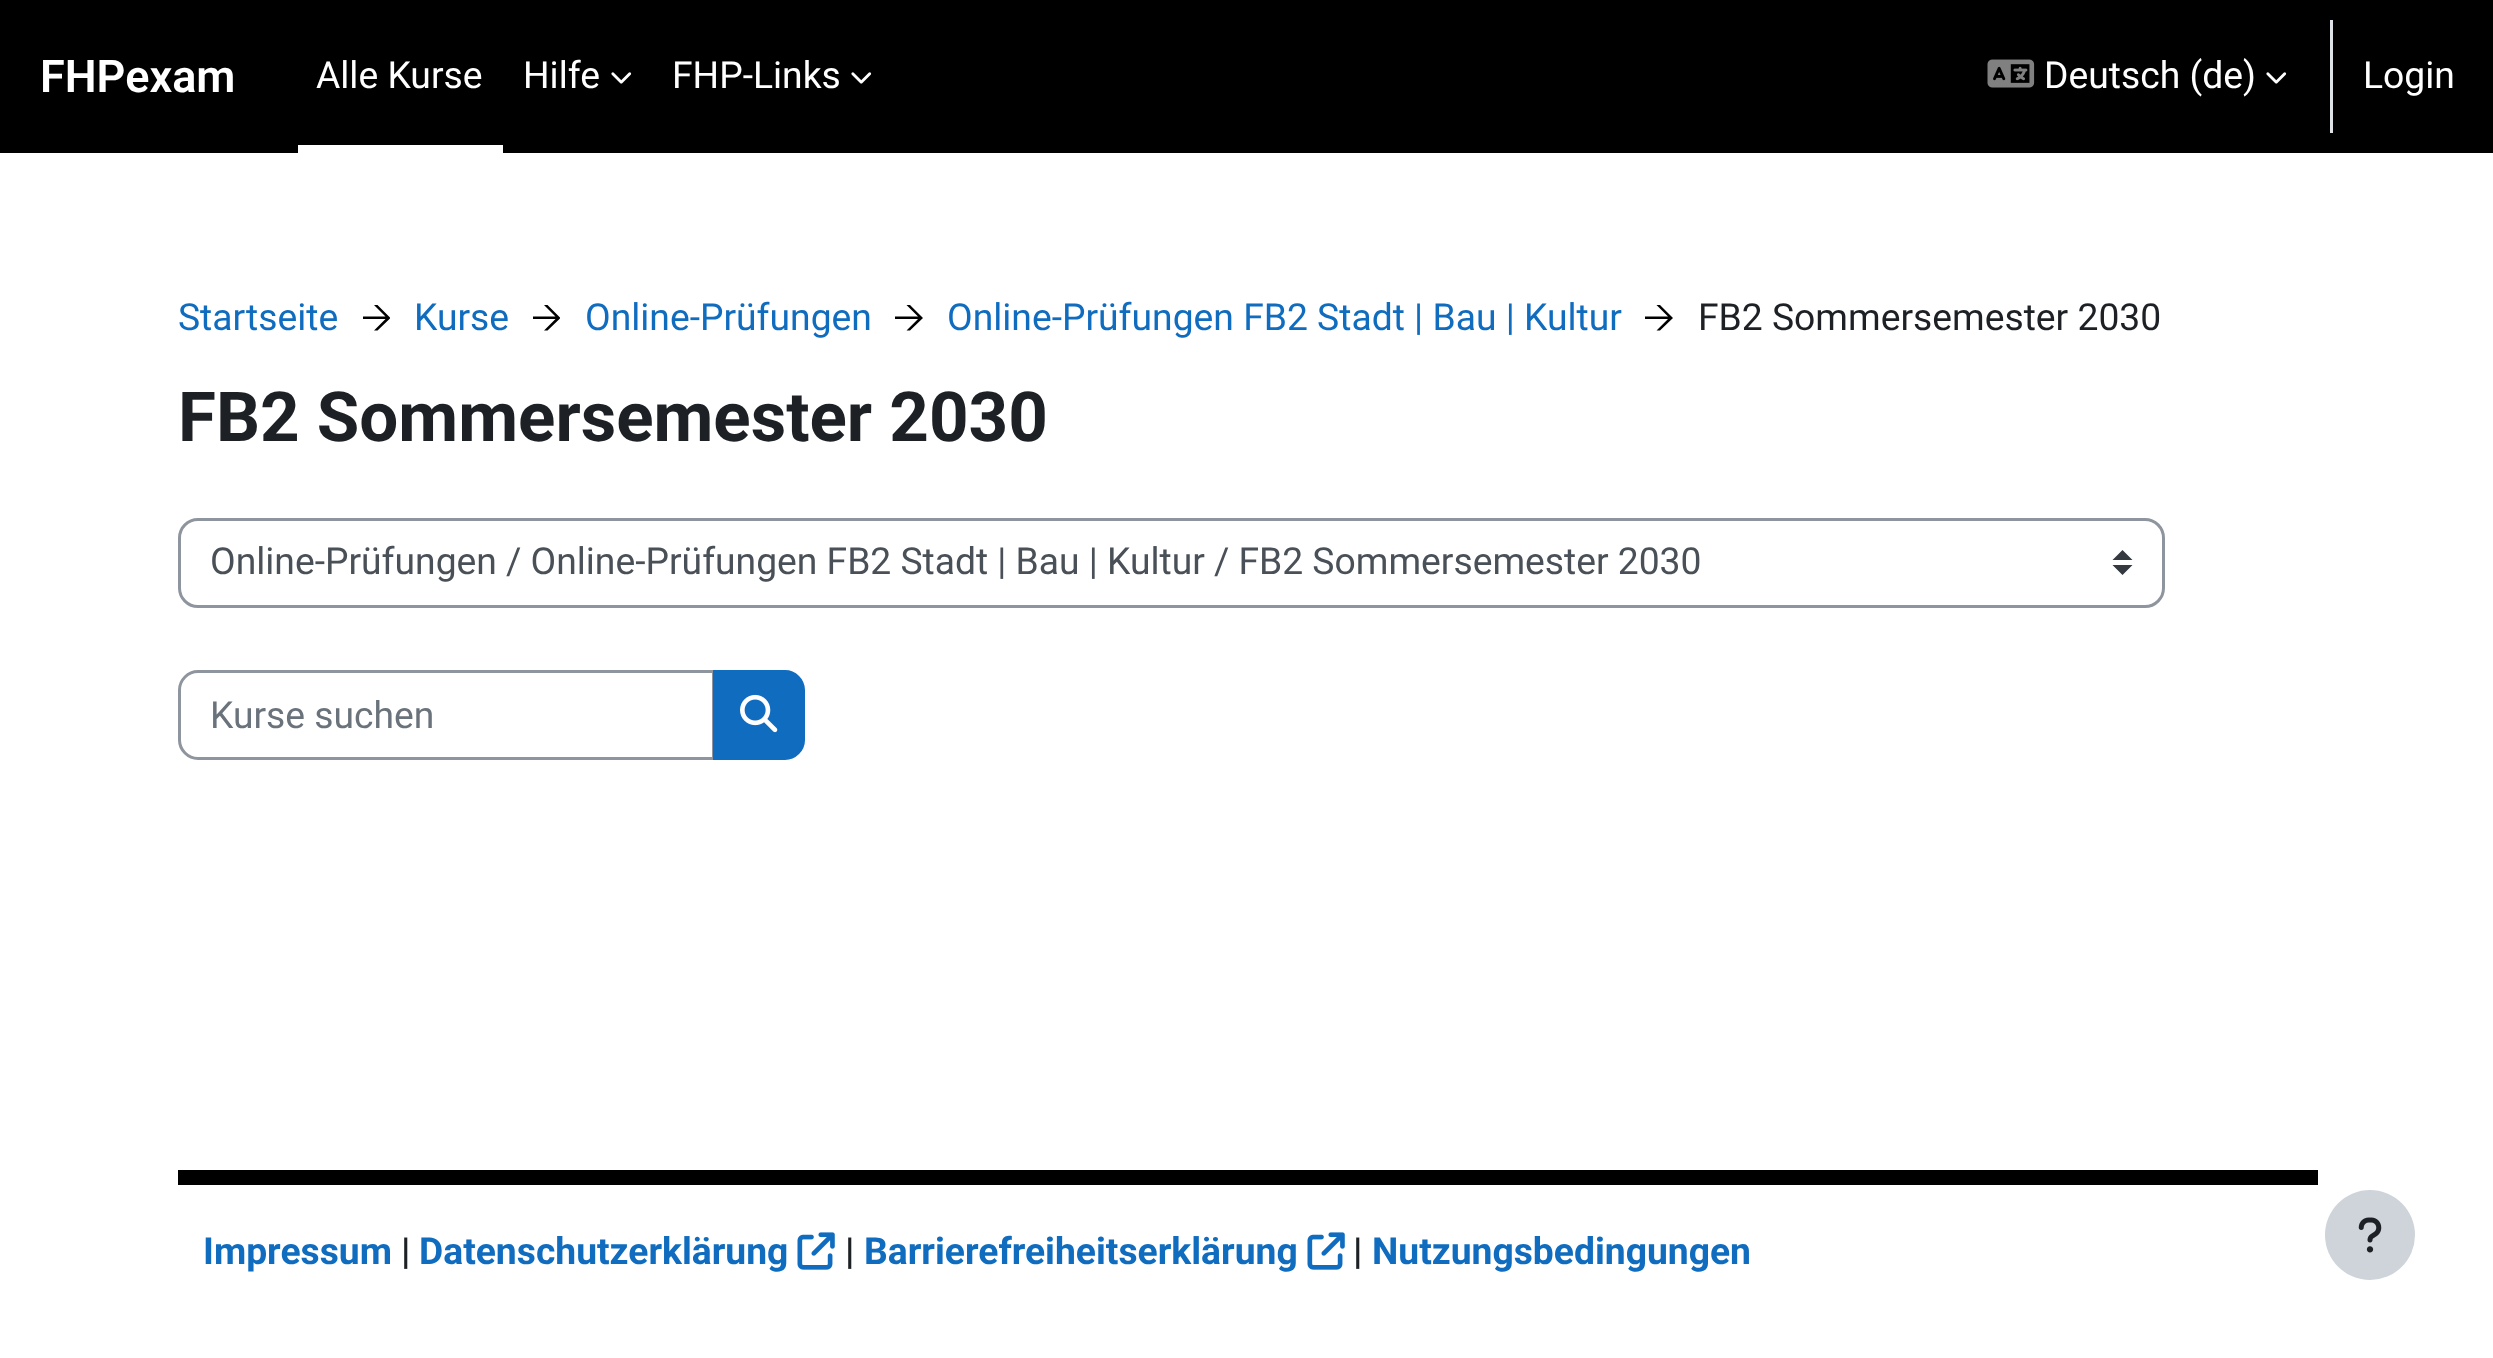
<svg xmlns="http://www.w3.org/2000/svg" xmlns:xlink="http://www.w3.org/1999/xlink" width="2493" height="1358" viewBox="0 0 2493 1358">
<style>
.cls-1{font:600 45px Roboto;fill:#ffffff}
.cls-2{font:37.25px Roboto;fill:#ffffff}
.cls-3{font:37.25px Roboto;fill:#0f6cbf}
.cls-4{font:37.25px Roboto;fill:#1d2125}
.cls-5{font:bold 69.1px Roboto;fill:#1d2125}
.cls-6{font:37.25px Roboto;fill:#495057}
.cls-7{font:37.25px Roboto;fill:#6a737b}
.cls-8{font:bold 37.25px Roboto;fill:#0f6cbf}
.cls-9{font:bold 37.25px Roboto;fill:#1d2125}
</style>
<defs>
<clipPath id="clip1"><rect x="363" y="305" width="27" height="28"/></clipPath>
<clipPath id="clip2"><rect x="533" y="305" width="27" height="28"/></clipPath>
</defs>
<rect width="100%" height="100%" fill="#ffffff"/>
<rect fill="#000000" x="0" y="0" width="2493" height="153"/>
<rect fill="#ffffff" x="298" y="145" width="205" height="8"/>
<image xlink:href="image0.png" x="611" y="72" width="21" height="12"/>
<image xlink:href="image0.png" x="851" y="72" width="21" height="12"/>
<image xlink:href="image1.png" x="1987" y="59" width="48" height="29"/>
<image xlink:href="image0.png" x="2266" y="72" width="21" height="12"/>
<rect fill="#dee2e6" x="2330" y="20" width="3" height="113"/>
<g clip-path="url(#clip1)">
<path fill="#000000" d="M390.5 318L377.5 330.5H374L385.5 319H362.5V316.5H385.5L374 305H377.5Z"/>
</g>
<g clip-path="url(#clip2)">
<path fill="#000000" d="M560.5 318L547.5 330.5H544L555.5 319H532.5V316.5H555.5L544 305H547.5Z"/>
</g>
<path fill="#000000" d="M923 318L910 330.5H906.5L918 319H895V316.5H918L906.5 305H910Z"/>
<path fill="#000000" d="M1673 318L1660 330.5H1656.5L1668 319H1645V316.5H1668L1656.5 305H1660Z"/>
<path fill="#343a40" d="M2122.5 550L2112.5 560H2132.5ZM2122.5 575L2112.5 565H2132.5Z"/>
<rect fill="none" stroke="#8f959e" stroke-width="3" x="179.5" y="519.5" width="1984" height="87" rx="18.5"/>
<path fill="none" stroke="#8f959e" stroke-width="3" d="M198 671.5H713.5V758.5H198C188 758.5 179.5 750 179.5 740V690C179.5 680 188 671.5 198 671.5Z"/>
<path fill="#0f6cbf" stroke="#0f6cbf" stroke-width="3" d="M714.5 671.5H785C795 671.5 803.5 680 803.5 690V740C803.5 750 795 758.5 785 758.5H714.5Z"/>
<image xlink:href="image2.png" x="740" y="694" width="38" height="39"/>
<rect fill="#000000" x="178" y="1170" width="2140" height="15"/>
<image xlink:href="image3.png" x="797" y="1232" width="38" height="38"/>
<image xlink:href="image3.png" x="1307" y="1232" width="38" height="38"/>
<circle fill="#ced4da" cx="2370" cy="1235" r="45"/>
<image xlink:href="image4.png" x="2358" y="1217" width="24" height="36"/>
<text class="cls-1" x="40" y="92">FHPexam</text>
<text class="cls-2" x="316" y="88">Alle Kurse</text>
<text class="cls-2" x="523" y="88">Hilfe</text>
<text class="cls-2" x="672" y="88">FHP-Links</text>
<text class="cls-2" x="2044" y="88">Deutsch (de)</text>
<text class="cls-2" x="2363" y="88">Login</text>
<text class="cls-3" x="178" y="330">Startseite</text>
<text class="cls-3" x="414" y="330">Kurse</text>
<text class="cls-3" x="585" y="330">Online-Prüfungen</text>
<text class="cls-3" x="947" y="330">Online-Prüfungen FB2 Stadt | Bau | Kultur</text>
<text class="cls-4" x="1698" y="330">FB2 Sommersemester 2030</text>
<text class="cls-5" x="178" y="441">FB2 Sommersemester 2030</text>
<text class="cls-6" x="210" y="574" word-spacing="-0.1">Online-Prüfungen / Online-Prüfungen FB2 Stadt | Bau | Kultur / FB2 Sommersemester 2030</text>
<text class="cls-7" x="210" y="728">Kurse suchen</text>
<text class="cls-8" x="203" y="1264">Impressum</text>
<text class="cls-9" x="401" y="1264">|</text>
<text class="cls-8" x="419" y="1264">Datenschutzerklärung</text>
<text class="cls-9" x="845" y="1264">|</text>
<text class="cls-8" x="864" y="1264">Barrierefreiheitserklärung</text>
<text class="cls-9" x="1353" y="1264">|</text>
<text class="cls-8" x="1372" y="1264">Nutzungsbedingungen</text>
</svg>
